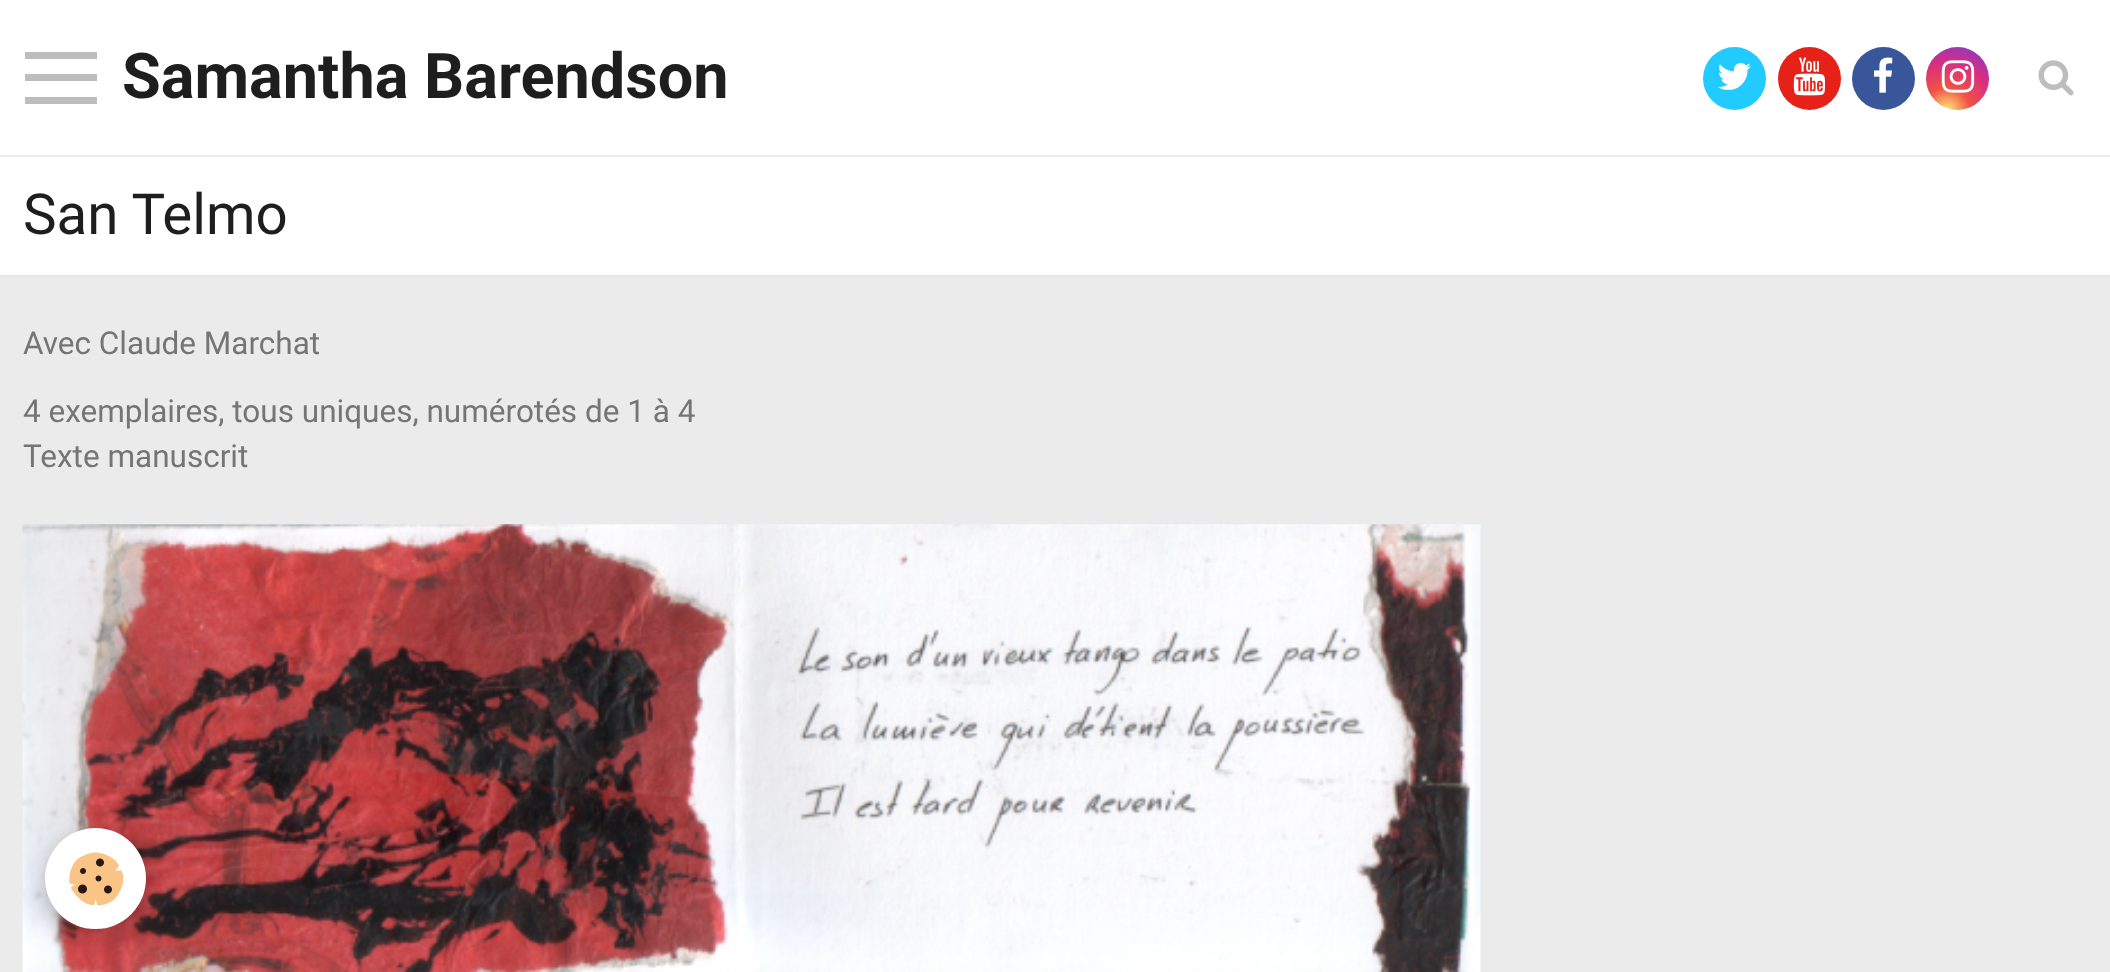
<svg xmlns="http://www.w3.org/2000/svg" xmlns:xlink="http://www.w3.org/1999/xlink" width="2110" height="972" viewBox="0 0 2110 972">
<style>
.cls-1{font:bold 63px Roboto;fill:#1e1e1e}
.cls-2{font:56.5px Roboto;fill:#1e1e1e}
.cls-3{font:31.5px Roboto;fill:#757575}
</style>
<defs>
<radialGradient id="g1" gradientUnits="userSpaceOnUse" cx="1947" cy="110" r="76"><stop offset="0.04" stop-color="#fed373"/><stop offset="0.3" stop-color="#f15245"/><stop offset="0.62" stop-color="#d92e7f"/><stop offset="0.85" stop-color="#9b36b7"/><stop offset="1" stop-color="#515ecf"/></radialGradient>
</defs>
<rect width="100%" height="100%" fill="#ebebeb"/>
<rect fill="#ffffff" x="0" y="0" width="2110" height="275"/>
<rect fill="#ebebeb" x="0" y="155" width="2110" height="2"/>
<rect fill="#bdbdbd" x="25" y="74" width="72" height="7"/>
<rect fill="#bdbdbd" x="25" y="52" width="72" height="7"/>
<rect fill="#bdbdbd" x="25" y="97" width="72" height="7"/>
<circle fill="#22cbff" cx="1734.5" cy="78.5" r="31.5"/>
<image xlink:href="image0.png" x="1718" y="63" width="33" height="27"/>
<circle fill="#e62117" cx="1809.5" cy="78.5" r="31.5"/>
<image xlink:href="image1.png" x="1793" y="57" width="33" height="39"/>
<circle fill="#385699" cx="1883.5" cy="78.5" r="31.5"/>
<image xlink:href="image2.png" x="1874" y="57" width="19" height="36"/>
<circle fill="url(#g1)" cx="1957.5" cy="78.5" r="31.5"/>
<image xlink:href="image3.png" x="1941" y="60" width="34" height="33"/>
<image xlink:href="image4.png" x="2038" y="60" width="36" height="36"/>
<rect fill="#e6e6e6" x="0" y="275" width="2110" height="2"/>
<image xlink:href="image5.png" x="22" y="524" width="1459" height="448"/>
<rect fill="#000000" fill-opacity="0.24" filter="blur(11px)" x="45" y="835" width="101" height="101" rx="50.5"/>
<circle fill="#ffffff" cx="95.5" cy="878.5" r="50.5"/>
<image xlink:href="image6.png" x="69" y="852" width="55" height="54"/>
<text class="cls-1" x="122" y="98">Samantha Barendson</text>
<text class="cls-2" x="23" y="234">San Telmo</text>
<text class="cls-3" x="23" y="354">Avec Claude Marchat</text>
<text class="cls-3"><tspan x="23" y="422">4 exemplaires, tous uniques, numérotés de 1 à 4</tspan><tspan x="23" y="467">Texte manuscrit</tspan></text>
</svg>
